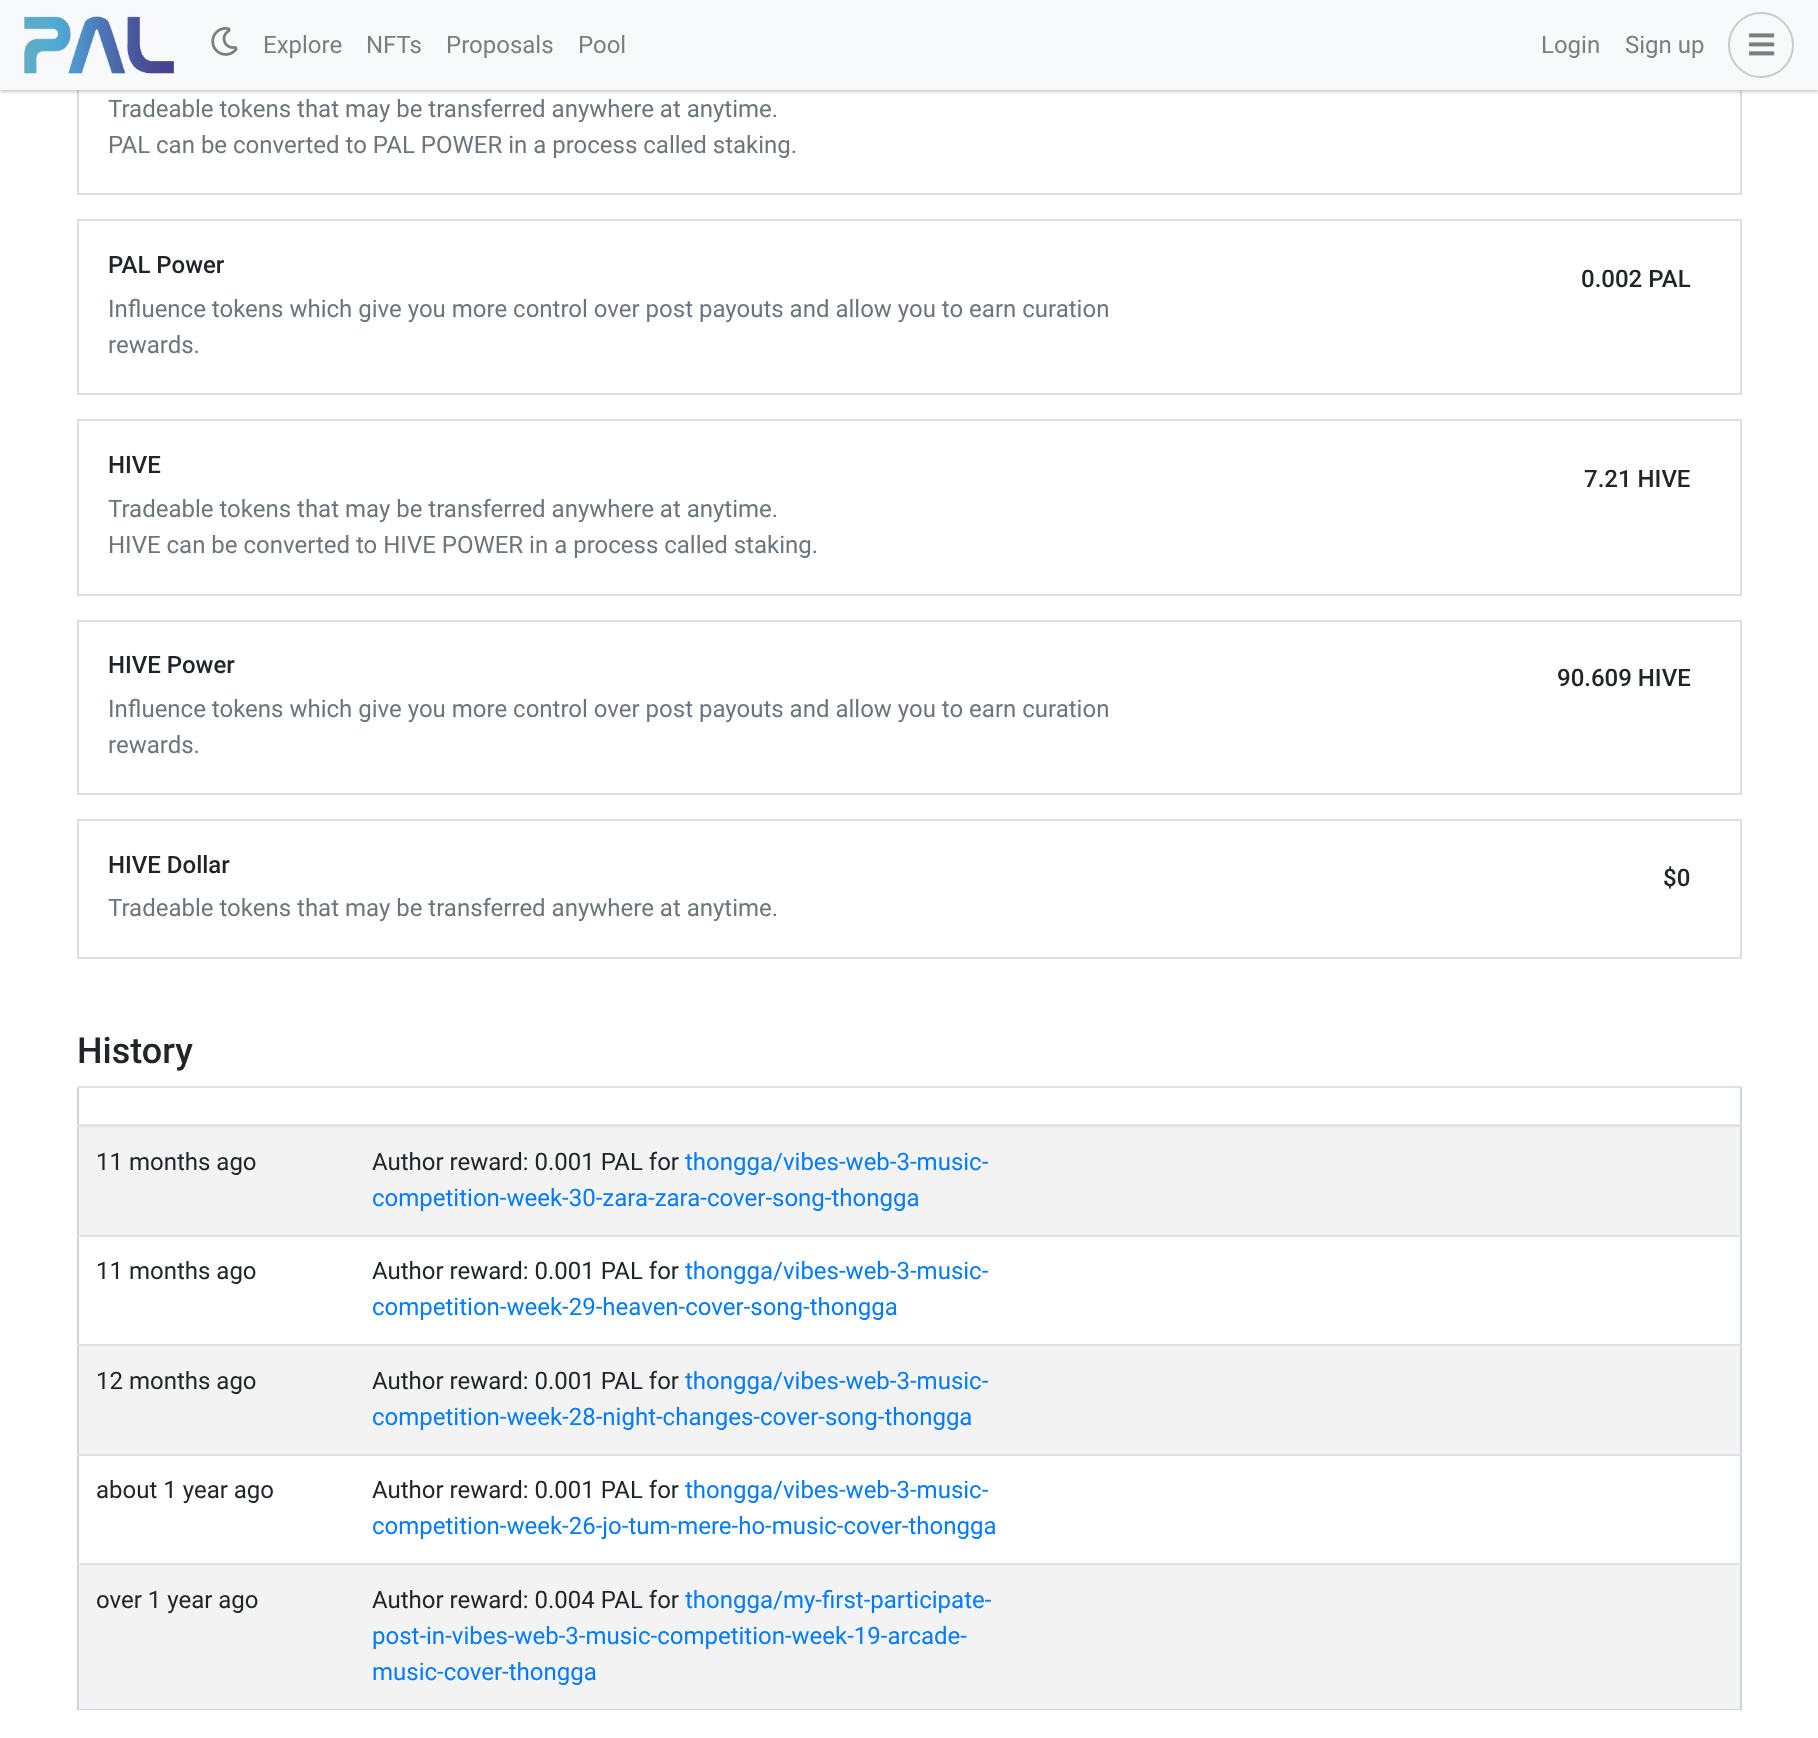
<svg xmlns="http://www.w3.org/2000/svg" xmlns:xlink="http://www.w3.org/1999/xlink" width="1818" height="1738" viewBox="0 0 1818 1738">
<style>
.cls-1{font:24px Roboto;fill:#7c7d7d}
.cls-2{font:24px Roboto;fill:#6c757d}
.cls-3{font:500 24px Roboto;fill:#212529}
.cls-4{font:500 36px Roboto;fill:#212529}
.cls-5{font:24px Roboto;fill:#212529}
.cls-6{font:24px Roboto;fill:#007bff}
</style>
<rect width="100%" height="100%" fill="#ffffff"/>
<rect fill="none" stroke="#dfdfdf" stroke-width="2" x="78" y="21" width="1663" height="173"/>
<rect fill="#000000" fill-opacity="0.14" filter="blur(1.5px)" x="0" y="2" width="1818" height="90"/>
<rect fill="#000000" fill-opacity="0.07" filter="blur(2px)" x="0" y="2" width="1818" height="90"/>
<rect fill="#f8f9fa" x="0" y="0" width="1818" height="90"/>
<image xlink:href="image0.png" x="24" y="16" width="150" height="58"/>
<image xlink:href="image1.png" x="211" y="27" width="27" height="29"/>
<circle fill="none" stroke="#cacaca" stroke-width="2" cx="1761" cy="45" r="32"/>
<image xlink:href="image2.png" x="1749" y="33" width="26" height="23"/>
<rect fill="none" stroke="#dfdfdf" stroke-width="2" x="78" y="220" width="1663" height="174"/>
<rect fill="none" stroke="#dfdfdf" stroke-width="2" x="78" y="420" width="1663" height="175"/>
<rect fill="none" stroke="#dfdfdf" stroke-width="2" x="78" y="621" width="1663" height="173"/>
<rect fill="none" stroke="#dfdfdf" stroke-width="2" x="78" y="820" width="1663" height="138"/>
<rect fill="#ced4da" x="1740" y="1086" width="2" height="624"/>
<rect fill="#ced4da" x="77" y="1709" width="1665" height="1"/>
<rect fill="#ced4da" x="77" y="1086" width="2" height="624"/>
<rect fill="#dee2e6" x="77" y="1086" width="1665" height="2"/>
<rect fill="#dee2e6" x="77" y="1124" width="1665" height="3"/>
<rect fill="#f3f3f3" x="79" y="1127" width="1661" height="108"/>
<rect fill="#dee2e6" x="77" y="1235" width="1665" height="2"/>
<rect fill="#f3f3f3" x="79" y="1346" width="1661" height="108"/>
<rect fill="#dee2e6" x="77" y="1344" width="1665" height="2"/>
<rect fill="#dee2e6" x="77" y="1454" width="1665" height="2"/>
<rect fill="#f3f3f3" x="79" y="1565" width="1661" height="144"/>
<rect fill="#dee2e6" x="77" y="1563" width="1665" height="2"/>
<text class="cls-1" x="263" y="53">Explore</text>
<text class="cls-1" x="366" y="53">NFTs</text>
<text class="cls-1" x="446" y="53">Proposals</text>
<text class="cls-1" x="578" y="53">Pool</text>
<text class="cls-1" x="1541" y="53">Login</text>
<text class="cls-1" x="1625" y="53">Sign up</text>
<text class="cls-2"><tspan x="108" y="117">Tradeable tokens that may be transferred anywhere at anytime.</tspan><tspan x="108" y="153">PAL can be converted to PAL POWER in a process called staking.</tspan></text>
<text class="cls-3" x="108" y="273">PAL Power</text>
<text class="cls-2"><tspan x="108" y="317">Influence tokens which give you more control over post payouts and allow you to earn curation</tspan><tspan x="108" y="353">rewards.</tspan></text>
<text class="cls-3" x="1581" y="287">0.002 PAL</text>
<text class="cls-3" x="108" y="473">HIVE</text>
<text class="cls-2"><tspan x="108" y="517">Tradeable tokens that may be transferred anywhere at anytime.</tspan><tspan x="108" y="553">HIVE can be converted to HIVE POWER in a process called staking.</tspan></text>
<text class="cls-3" x="1584" y="487">7.21 HIVE</text>
<text class="cls-3" x="108" y="673">HIVE Power</text>
<text class="cls-2"><tspan x="108" y="717">Influence tokens which give you more control over post payouts and allow you to earn curation</tspan><tspan x="108" y="753">rewards.</tspan></text>
<text class="cls-3" x="1557" y="686">90.609 HIVE</text>
<text class="cls-3" x="108" y="873">HIVE Dollar</text>
<text class="cls-2" x="108" y="916">Tradeable tokens that may be transferred anywhere at anytime.</text>
<text class="cls-3" x="1663" y="886">$0</text>
<text class="cls-4" x="77" y="1063">History</text>
<text class="cls-5" x="96" y="1170">11 months ago</text>
<text class="cls-5" x="372" y="1170">Author reward: 0.001 PAL for</text>
<text class="cls-6" x="685" y="1170">thongga/vibes-web-3-music-</text>
<text class="cls-6" x="372" y="1206">competition-week-30-zara-zara-cover-song-thongga</text>
<text class="cls-5" x="96" y="1279">11 months ago</text>
<text class="cls-5" x="372" y="1279">Author reward: 0.001 PAL for</text>
<text class="cls-6" x="685" y="1279">thongga/vibes-web-3-music-</text>
<text class="cls-6" x="372" y="1315">competition-week-29-heaven-cover-song-thongga</text>
<text class="cls-5" x="96" y="1389">12 months ago</text>
<text class="cls-5" x="372" y="1389">Author reward: 0.001 PAL for</text>
<text class="cls-6" x="685" y="1389">thongga/vibes-web-3-music-</text>
<text class="cls-6" x="372" y="1425">competition-week-28-night-changes-cover-song-thongga</text>
<text class="cls-5" x="96" y="1498">about 1 year ago</text>
<text class="cls-5" x="372" y="1498">Author reward: 0.001 PAL for</text>
<text class="cls-6" x="685" y="1498">thongga/vibes-web-3-music-</text>
<text class="cls-6" x="372" y="1534">competition-week-26-jo-tum-mere-ho-music-cover-thongga</text>
<text class="cls-5" x="96" y="1608">over 1 year ago</text>
<text class="cls-5" x="372" y="1608">Author reward: 0.004 PAL for</text>
<text class="cls-6" x="685" y="1608">thongga/my-first-participate-</text>
<text class="cls-6"><tspan x="372" y="1644">post-in-vibes-web-3-music-competition-week-19-arcade-</tspan><tspan x="372" y="1680">music-cover-thongga</tspan></text>
</svg>
